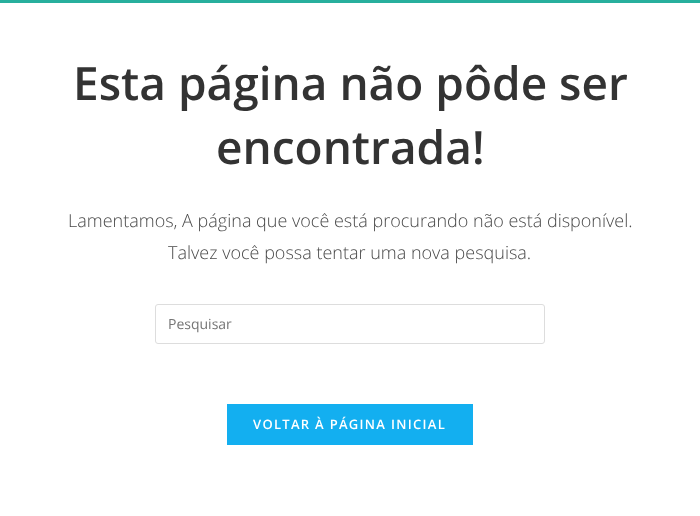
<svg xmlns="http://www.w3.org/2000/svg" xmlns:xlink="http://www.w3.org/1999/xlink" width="700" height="516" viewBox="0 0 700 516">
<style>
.cls-1{font:600 46px Open Sans;fill:#333333}
.cls-2{font:300 18px Open Sans;fill:#4a4a4a}
.cls-3{font:14px Open Sans;fill:#757575}
.cls-4{font:600 13px Open Sans;letter-spacing:1.3px;fill:#ffffff}
</style>
<rect width="100%" height="100%" fill="#ffffff"/>
<rect fill="#27af9d" x="0" y="0" width="700" height="3"/>
<rect fill="none" stroke="#dddddd" x="155.5" y="304.5" width="389" height="39" rx="2.5"/>
<rect fill="#13aff0" x="227" y="404" width="246" height="41"/>
<text class="cls-1" x="73" y="100">Esta página não pôde ser</text>
<text class="cls-1" x="216" y="164">encontrada!</text>
<text class="cls-2" x="68" y="227">Lamentamos, A página que você está procurando não está disponível.</text>
<text class="cls-2" x="168" y="259">Talvez você possa tentar uma nova pesquisa.</text>
<text class="cls-3" x="168" y="329">Pesquisar</text>
<text class="cls-4" x="253" y="429">VOLTAR À PÁGINA INICIAL</text>
</svg>
